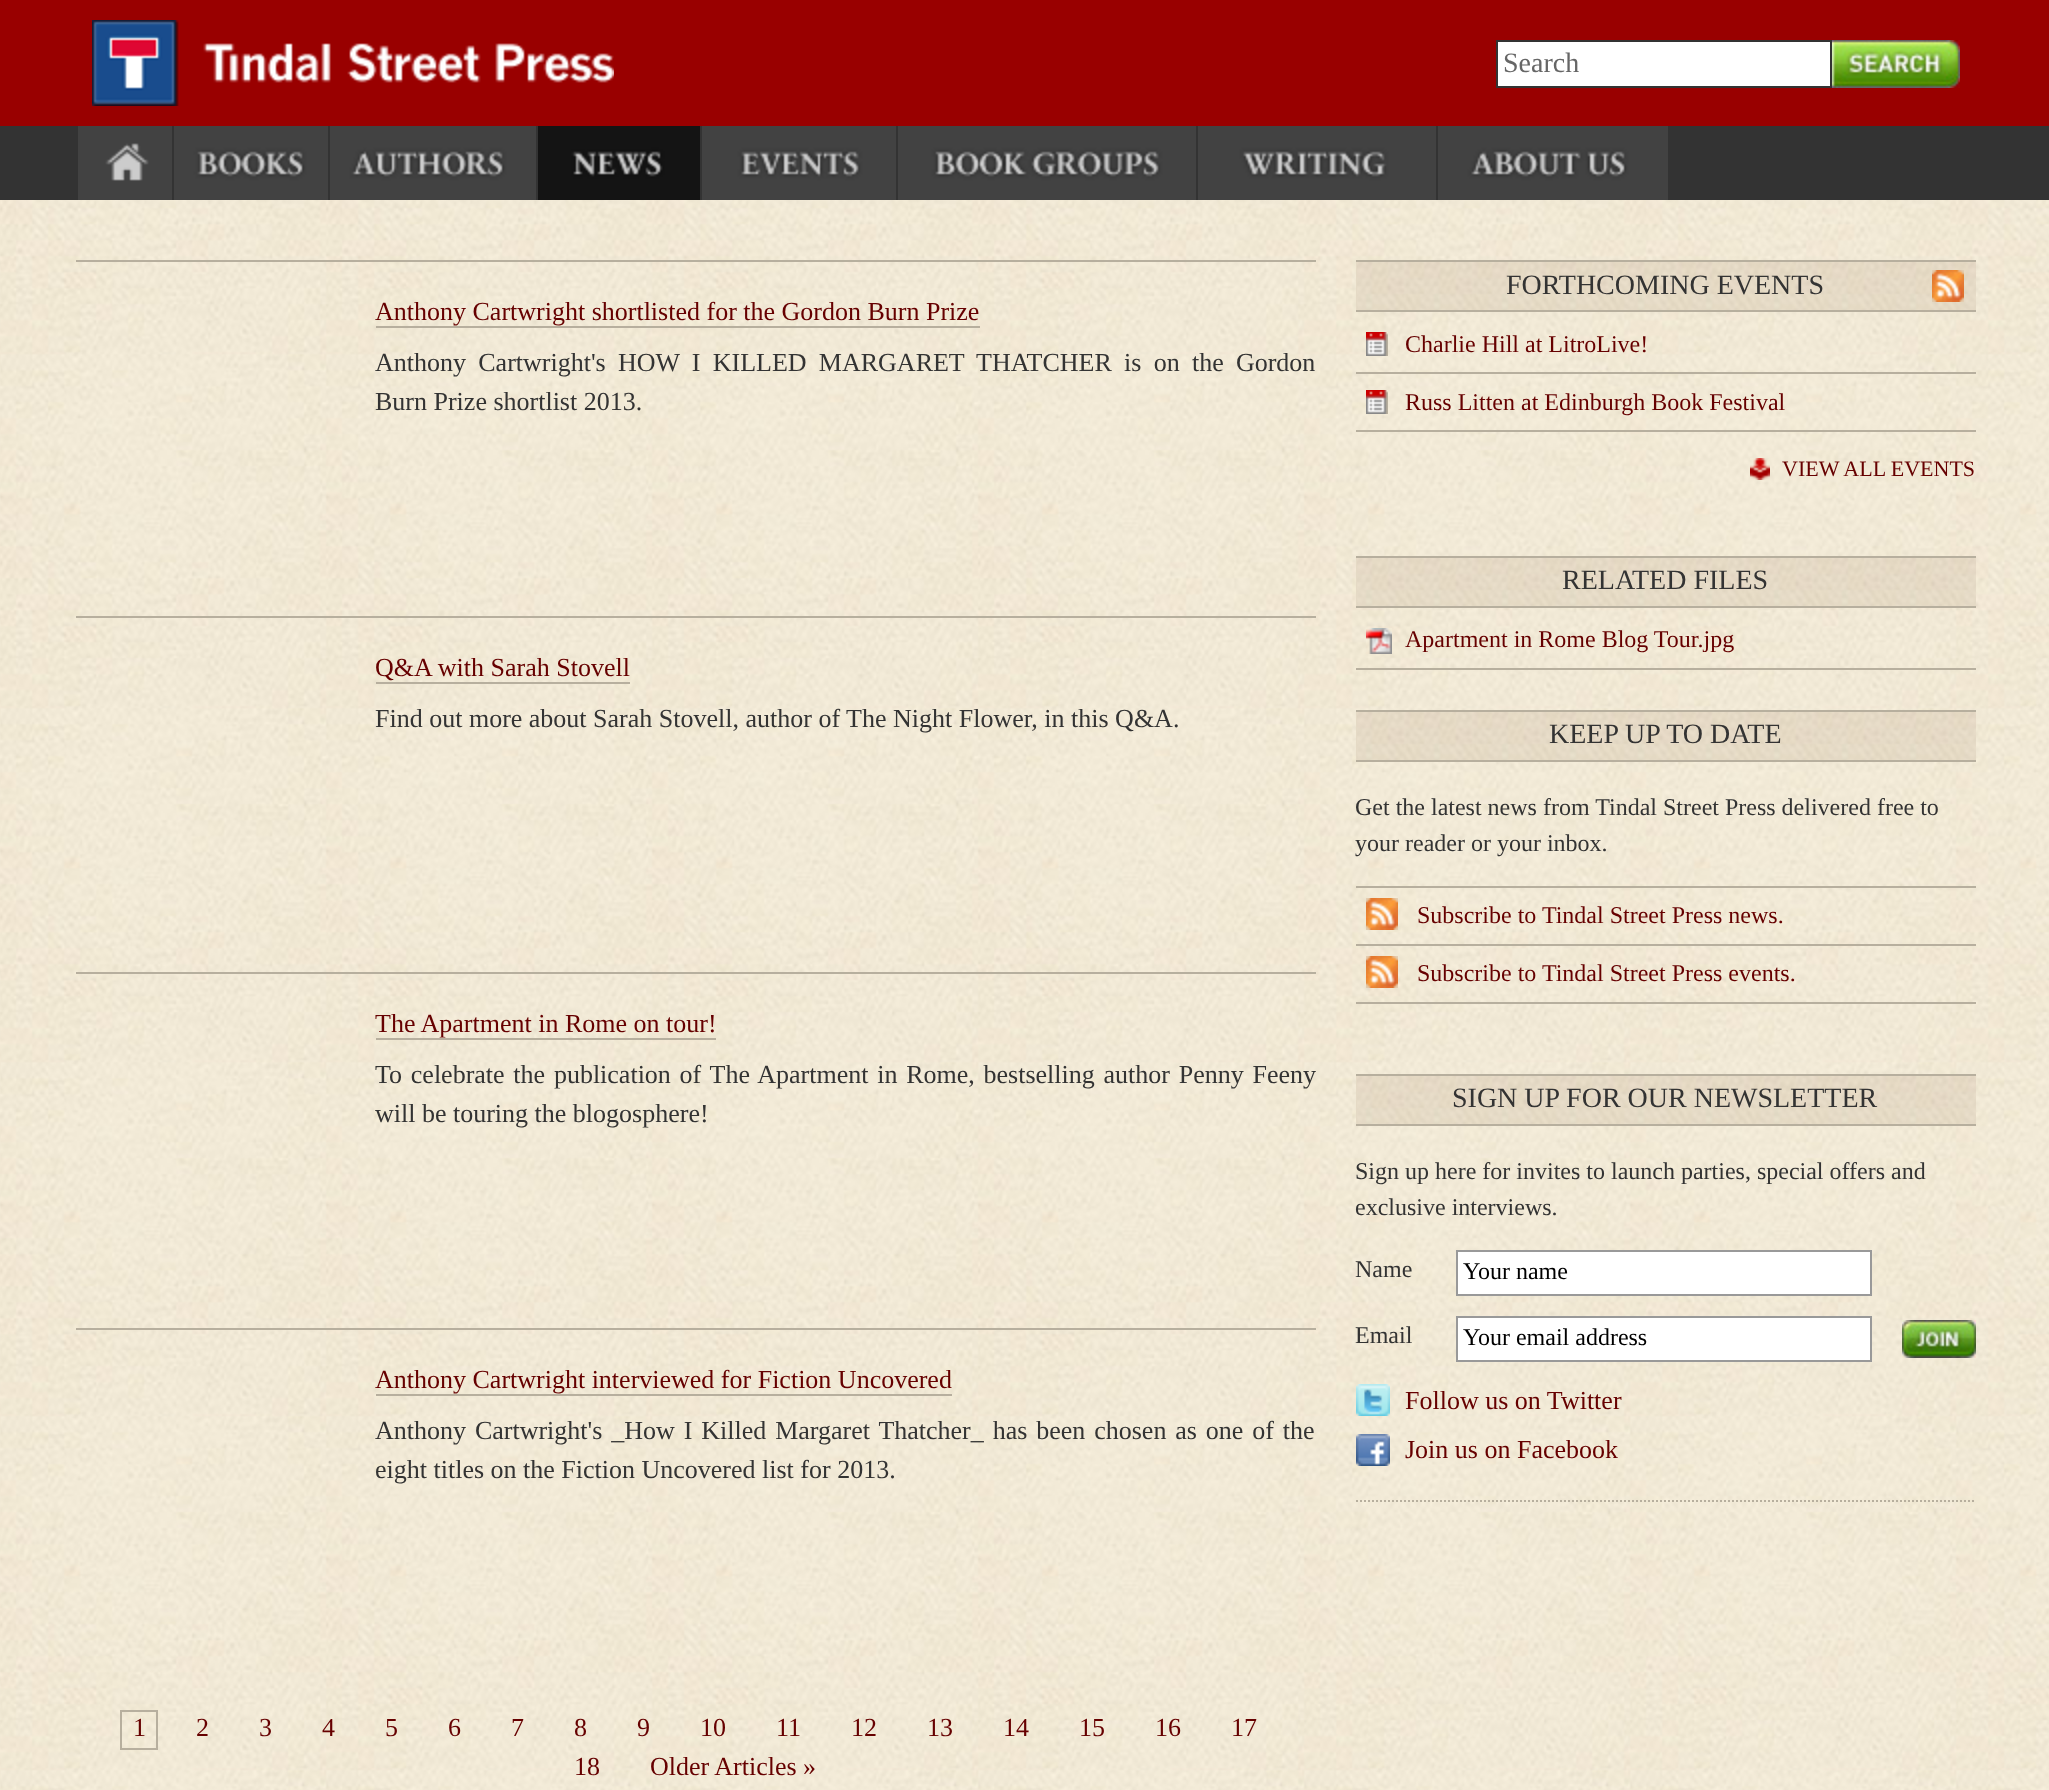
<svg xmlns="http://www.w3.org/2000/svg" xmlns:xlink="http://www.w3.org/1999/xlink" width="2049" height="1790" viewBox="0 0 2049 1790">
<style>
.cls-1{font:28px Liberation Serif;fill:#666666}
.cls-2{font:26px Liberation Serif;fill:#660000}
.cls-3{font:26px Liberation Serif;fill:#333333}
.cls-4{font:28px Liberation Serif;fill:#333333}
.cls-5{font:24px Liberation Serif;fill:#660000}
.cls-6{font:22px Liberation Serif;fill:#660000}
.cls-7{font:24px Liberation Serif;fill:#333333}
.cls-8{font:24px Liberation Serif;fill:#000000}
</style>
<rect width="100%" height="100%" fill="#ffffff"/>
<image xlink:href="image0.png" x="0" y="200" width="2049" height="1590"/>
<rect fill="#990000" x="0" y="0" width="2049" height="126"/>
<image xlink:href="image1.png" x="92" y="20" width="522" height="86"/>
<rect fill="#ffffff" stroke="#333333" stroke-width="2" x="1497" y="41" width="334" height="46"/>
<image xlink:href="image2.png" x="1832" y="40" width="128" height="48"/>
<rect fill="#333333" x="0" y="126" width="2049" height="74"/>
<image xlink:href="image3.png" x="78" y="126" width="94" height="74"/>
<image xlink:href="image4.png" x="174" y="126" width="154" height="74"/>
<image xlink:href="image5.png" x="330" y="126" width="206" height="74"/>
<image xlink:href="image6.png" x="538" y="126" width="162" height="74"/>
<image xlink:href="image7.png" x="702" y="126" width="194" height="74"/>
<image xlink:href="image8.png" x="898" y="126" width="298" height="74"/>
<image xlink:href="image9.png" x="1198" y="126" width="238" height="74"/>
<image xlink:href="image10.png" x="1438" y="126" width="230" height="74"/>
<rect fill="#b7af9e" x="76" y="260" width="1240" height="2"/>
<rect fill="#b7af9e" x="376" y="326" width="604" height="2"/>
<rect fill="#b7af9e" x="76" y="616" width="1240" height="2"/>
<rect fill="#b7af9e" x="376" y="682" width="254" height="2"/>
<rect fill="#b7af9e" x="76" y="972" width="1240" height="2"/>
<rect fill="#b7af9e" x="376" y="1038" width="340" height="2"/>
<rect fill="#b7af9e" x="76" y="1328" width="1240" height="2"/>
<rect fill="#b7af9e" x="376" y="1394" width="576" height="2"/>
<rect fill="none" stroke="#b7af9e" stroke-width="2" x="121" y="1711" width="36" height="38"/>
<rect fill="#e5dac5" x="1356" y="262" width="1" height="48"/>
<image xlink:href="image11.png" x="1357" y="262" width="619" height="48"/>
<rect fill="#b7af9e" x="1356" y="260" width="620" height="2"/>
<rect fill="#b7af9e" x="1356" y="310" width="620" height="2"/>
<image xlink:href="image12.png" x="1932" y="270" width="32" height="32"/>
<rect fill="#b7af9e" x="1356" y="372" width="620" height="2"/>
<image xlink:href="image13.png" x="1366" y="332" width="22" height="24"/>
<rect fill="#b7af9e" x="1356" y="430" width="620" height="2"/>
<image xlink:href="image13.png" x="1366" y="390" width="22" height="24"/>
<image xlink:href="image14.png" x="1750" y="458" width="20" height="22"/>
<rect fill="#e5dac5" x="1356" y="558" width="1" height="48"/>
<image xlink:href="image11.png" x="1357" y="558" width="619" height="48"/>
<rect fill="#b7af9e" x="1356" y="556" width="620" height="2"/>
<rect fill="#b7af9e" x="1356" y="606" width="620" height="2"/>
<rect fill="#b7af9e" x="1356" y="668" width="620" height="2"/>
<image xlink:href="image15.png" x="1366" y="628" width="26" height="26"/>
<rect fill="#e5dac5" x="1356" y="712" width="1" height="48"/>
<image xlink:href="image11.png" x="1357" y="712" width="619" height="48"/>
<rect fill="#b7af9e" x="1356" y="710" width="620" height="2"/>
<rect fill="#b7af9e" x="1356" y="760" width="620" height="2"/>
<rect fill="#b7af9e" x="1356" y="886" width="620" height="2"/>
<image xlink:href="image12.png" x="1366" y="898" width="32" height="32"/>
<rect fill="#b7af9e" x="1356" y="944" width="620" height="2"/>
<rect fill="#b7af9e" x="1356" y="1002" width="620" height="2"/>
<image xlink:href="image12.png" x="1366" y="956" width="32" height="32"/>
<path fill="none" stroke="#b7af9e" stroke-width="2" stroke-dasharray="2 2" d="M1356 1501H1976"/>
<rect fill="#e5dac5" x="1356" y="1076" width="1" height="48"/>
<image xlink:href="image11.png" x="1357" y="1076" width="619" height="48"/>
<rect fill="#b7af9e" x="1356" y="1074" width="620" height="2"/>
<rect fill="#b7af9e" x="1356" y="1124" width="620" height="2"/>
<rect fill="#ffffff" stroke="#999999" stroke-width="2" x="1457" y="1251" width="414" height="44"/>
<rect fill="#ffffff" stroke="#999999" stroke-width="2" x="1457" y="1317" width="414" height="44"/>
<image xlink:href="image16.png" x="1902" y="1320" width="74" height="38"/>
<image xlink:href="image17.png" x="1356" y="1384" width="34" height="32"/>
<image xlink:href="image18.png" x="1356" y="1434" width="34" height="32"/>
<text class="cls-1" x="1503" y="72">Search</text>
<text class="cls-2" x="375" y="320">Anthony Cartwright shortlisted for the Gordon Burn Prize</text>
<text class="cls-3"><tspan x="375" y="371" word-spacing="5.75">Anthony Cartwright's HOW I KILLED MARGARET THATCHER is on the Gordon</tspan><tspan x="375" y="410">Burn Prize shortlist 2013.</tspan></text>
<text class="cls-2" x="375" y="676">Q&amp;A with Sarah Stovell</text>
<text class="cls-3" x="375" y="727">Find out more about Sarah Stovell, author of The Night Flower, in this Q&amp;A.</text>
<text class="cls-2" x="375" y="1032">The Apartment in Rome on tour!</text>
<text class="cls-3"><tspan x="375" y="1083" word-spacing="2.25">To celebrate the publication of The Apartment in Rome, bestselling author Penny Feeny</tspan><tspan x="375" y="1122">will be touring the blogosphere!</tspan></text>
<text class="cls-2" x="375" y="1388">Anthony Cartwright interviewed for Fiction Uncovered</text>
<text class="cls-3"><tspan x="375" y="1439" word-spacing="2.4">Anthony Cartwright's _How I Killed Margaret Thatcher_ has been chosen as one of the</tspan><tspan x="375" y="1478">eight titles on the Fiction Uncovered list for 2013.</tspan></text>
<text class="cls-2" x="133" y="1736">1</text>
<text class="cls-2" x="196" y="1736">2</text>
<text class="cls-2" x="259" y="1736">3</text>
<text class="cls-2" x="322" y="1736">4</text>
<text class="cls-2" x="385" y="1736">5</text>
<text class="cls-2" x="448" y="1736">6</text>
<text class="cls-2" x="511" y="1736">7</text>
<text class="cls-2" x="574" y="1736">8</text>
<text class="cls-2" x="637" y="1736">9</text>
<text class="cls-2" x="700" y="1736">10</text>
<text class="cls-2" x="776" y="1736">11</text>
<text class="cls-2" x="851" y="1736">12</text>
<text class="cls-2" x="927" y="1736">13</text>
<text class="cls-2" x="1003" y="1736">14</text>
<text class="cls-2" x="1079" y="1736">15</text>
<text class="cls-2" x="1155" y="1736">16</text>
<text class="cls-2" x="1231" y="1736">17</text>
<text class="cls-2" x="574" y="1775">18</text>
<text class="cls-2" x="650" y="1775">Older Articles »</text>
<text class="cls-4" x="1506" y="294">FORTHCOMING EVENTS</text>
<text class="cls-5" x="1405" y="352">Charlie Hill at LitroLive!</text>
<text class="cls-5" x="1405" y="410">Russ Litten at Edinburgh Book Festival</text>
<text class="cls-6" x="1782" y="476">VIEW ALL EVENTS</text>
<text class="cls-4" x="1562" y="589">RELATED FILES</text>
<text class="cls-5" x="1405" y="647">Apartment in Rome Blog Tour.jpg</text>
<text class="cls-4" x="1549" y="743">KEEP UP TO DATE</text>
<text class="cls-7"><tspan x="1355" y="815">Get the latest news from Tindal Street Press delivered free to</tspan><tspan x="1355" y="851">your reader or your inbox.</tspan></text>
<text class="cls-5" x="1417" y="923">Subscribe to Tindal Street Press news.</text>
<text class="cls-5" x="1417" y="981">Subscribe to Tindal Street Press events.</text>
<text class="cls-4" x="1452" y="1107">SIGN UP FOR OUR NEWSLETTER</text>
<text class="cls-7"><tspan x="1355" y="1179">Sign up here for invites to launch parties, special offers and</tspan><tspan x="1355" y="1215">exclusive interviews.</tspan></text>
<text class="cls-7" x="1355" y="1277">Name</text>
<text class="cls-8" x="1463" y="1279">Your name</text>
<text class="cls-7" x="1355" y="1343">Email</text>
<text class="cls-8" x="1463" y="1345">Your email address</text>
<text class="cls-2"><tspan x="1405" y="1409">Follow us on Twitter</tspan><tspan x="1405" y="1458">Join us on Facebook</tspan></text>
</svg>
